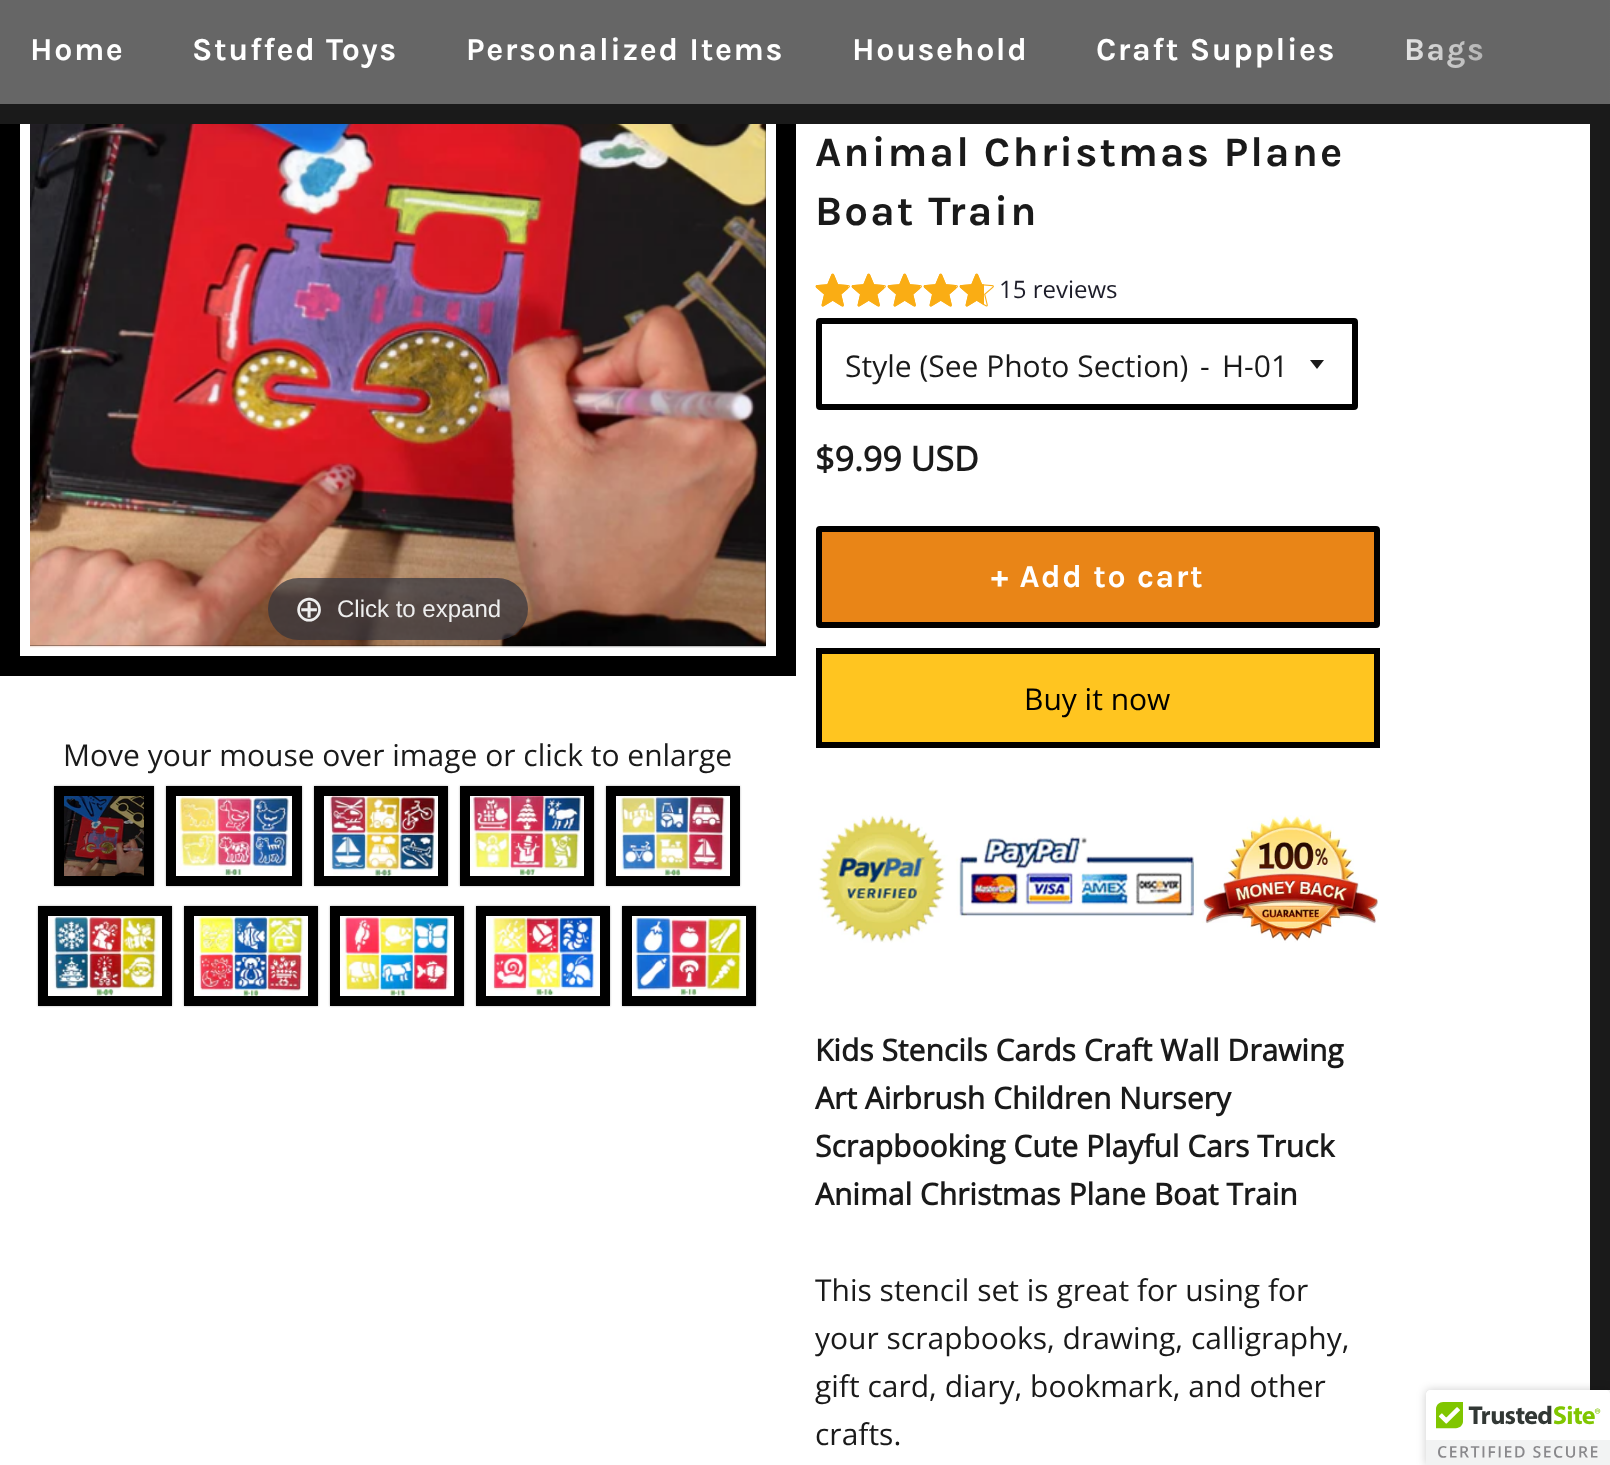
<svg xmlns="http://www.w3.org/2000/svg" xmlns:xlink="http://www.w3.org/1999/xlink" width="1610" height="1465" viewBox="0 0 1610 1465">
<style>
.cls-1{font:bold 32px Karla;letter-spacing:1.6px;fill:#ffffff}
.cls-2{font:36px DejaVu Sans;fill:#eeeeee}
.cls-3{font:24px Liberation Sans;fill:#eeeeee}
.cls-4{font:30px Open Sans;fill:#1a1a1a}
.cls-5{font:bold 42px Karla;letter-spacing:2.1px;fill:#1a1a1a}
.cls-6{font:24px Open Sans;fill:#1c1c28}
.cls-7{font:bold 34px Open Sans;fill:#1a1a1a}
.cls-8{font:30px Open Sans;fill:#000000}
.cls-9{font:bold 30px Open Sans;fill:#1a1a1a}
</style>
<defs>
<clipPath id="clip1"><path d="M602 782H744V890H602ZM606 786H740V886H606Z" clip-rule="evenodd"/></clipPath>
<clipPath id="clip2"><path d="M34 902H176V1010H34ZM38 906H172V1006H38Z" clip-rule="evenodd"/></clipPath>
<clipPath id="clip3"><path d="M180 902H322V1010H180ZM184 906H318V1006H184Z" clip-rule="evenodd"/></clipPath>
<clipPath id="clip4"><path d="M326 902H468V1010H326ZM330 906H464V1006H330Z" clip-rule="evenodd"/></clipPath>
<clipPath id="clip5"><path d="M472 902H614V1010H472ZM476 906H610V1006H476Z" clip-rule="evenodd"/></clipPath>
<clipPath id="clip6"><path d="M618 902H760V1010H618ZM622 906H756V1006H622Z" clip-rule="evenodd"/></clipPath>
<linearGradient id="g1" gradientUnits="userSpaceOnUse" x1="1360" y1="52" x2="1610" y2="52"><stop offset="0" stop-color="#666666" stop-opacity="0"/><stop offset="1" stop-color="#666666"/></linearGradient>
</defs>
<rect width="100%" height="100%" fill="#ffffff"/>
<rect fill="none" stroke="#000000" stroke-width="20" x="10" y="-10" width="776" height="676"/>
<rect fill="#1a1a1a" x="0" y="104" width="1610" height="20"/>
<rect fill="#666666" x="0" y="0" width="1609" height="104"/>
<rect fill="#1a1a1a" x="1590" y="124" width="20" height="1266"/>
<rect fill="#000000" x="30" y="124" width="736" height="522"/>
<image xlink:href="image0.png" x="30" y="124" width="736" height="524"/>
<rect fill="#31333d" fill-opacity="0.7" x="268" y="578" width="260" height="62" rx="31"/>
<rect fill="#000000" fill-opacity="0.3" filter="blur(1px)" x="54" y="786" width="100" height="100"/>
<rect fill="none" stroke="#000000" stroke-width="10" x="59" y="791" width="90" height="90"/>
<image xlink:href="image1.png" x="64" y="796" width="80" height="80"/>
<rect fill="#000000" fill-opacity="0.3" filter="blur(1px)" x="166" y="786" width="136" height="100"/>
<rect fill="none" stroke="#000000" stroke-width="10" x="171" y="791" width="126" height="90"/>
<image xlink:href="image2.png" x="176" y="796" width="116" height="80"/>
<rect fill="#000000" fill-opacity="0.3" filter="blur(1px)" x="314" y="786" width="134" height="100"/>
<rect fill="none" stroke="#000000" stroke-width="10" x="319" y="791" width="124" height="90"/>
<image xlink:href="image3.png" x="324" y="796" width="114" height="80"/>
<rect fill="#000000" fill-opacity="0.3" filter="blur(1px)" x="460" y="786" width="134" height="100"/>
<rect fill="none" stroke="#000000" stroke-width="10" x="465" y="791" width="124" height="90"/>
<image xlink:href="image4.png" x="470" y="796" width="114" height="80"/>
<g clip-path="url(#clip1)">
<rect fill="#000000" fill-opacity="0.3" filter="blur(1px)" x="606" y="786" width="134" height="100"/>
</g>
<rect fill="none" stroke="#000000" stroke-width="10" x="611" y="791" width="124" height="90"/>
<image xlink:href="image5.png" x="616" y="796" width="110" height="80"/>
<g clip-path="url(#clip2)">
<rect fill="#000000" fill-opacity="0.3" filter="blur(1px)" x="38" y="906" width="134" height="100"/>
</g>
<rect fill="none" stroke="#000000" stroke-width="10" x="43" y="911" width="124" height="90"/>
<image xlink:href="image6.png" x="48" y="916" width="110" height="80"/>
<g clip-path="url(#clip3)">
<rect fill="#000000" fill-opacity="0.3" filter="blur(1px)" x="184" y="906" width="134" height="100"/>
</g>
<rect fill="none" stroke="#000000" stroke-width="10" x="189" y="911" width="124" height="90"/>
<image xlink:href="image7.png" x="194" y="916" width="110" height="80"/>
<g clip-path="url(#clip4)">
<rect fill="#000000" fill-opacity="0.3" filter="blur(1px)" x="330" y="906" width="134" height="100"/>
</g>
<rect fill="none" stroke="#000000" stroke-width="10" x="335" y="911" width="124" height="90"/>
<image xlink:href="image8.png" x="340" y="916" width="110" height="80"/>
<g clip-path="url(#clip5)">
<rect fill="#000000" fill-opacity="0.3" filter="blur(1px)" x="476" y="906" width="134" height="100"/>
</g>
<rect fill="none" stroke="#000000" stroke-width="10" x="481" y="911" width="124" height="90"/>
<image xlink:href="image9.png" x="488" y="916" width="108" height="80"/>
<g clip-path="url(#clip6)">
<rect fill="#000000" fill-opacity="0.3" filter="blur(1px)" x="622" y="906" width="134" height="100"/>
</g>
<rect fill="none" stroke="#000000" stroke-width="10" x="627" y="911" width="124" height="90"/>
<image xlink:href="image10.png" x="632" y="916" width="111" height="80"/>
<image xlink:href="image11.png" x="815" y="273" width="35" height="34"/>
<image xlink:href="image12.png" x="816" y="274" width="32" height="33"/>
<image xlink:href="image11.png" x="851" y="273" width="35" height="34"/>
<image xlink:href="image12.png" x="852" y="274" width="32" height="33"/>
<image xlink:href="image11.png" x="887" y="273" width="35" height="34"/>
<image xlink:href="image12.png" x="888" y="274" width="32" height="33"/>
<image xlink:href="image11.png" x="923" y="273" width="35" height="34"/>
<image xlink:href="image12.png" x="924" y="274" width="32" height="33"/>
<image xlink:href="image11.png" x="959" y="273" width="35" height="34"/>
<image xlink:href="image13.png" x="960" y="274" width="24" height="33"/>
<rect fill="none" stroke="#000000" stroke-width="6" x="819" y="321" width="536" height="86" rx="1"/>
<path fill="#1a1a1a" d="M1310 360L1317 369L1324 360Z"/>
<rect fill="#e98517" stroke="#000000" stroke-width="6" x="819" y="529" width="558" height="96" rx="1"/>
<rect fill="#ffc520" stroke="#000000" stroke-width="6" x="819" y="651" width="558" height="94"/>
<image xlink:href="image14.png" x="818" y="815" width="561" height="128"/>
<rect fill="#000000" fill-opacity="0.2" filter="blur(5px)" x="1426" y="1390" width="184" height="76" rx="4"/>
<path fill="#ffffff" d="M1430 1390H1610V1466H1426V1394C1426 1392 1428 1390 1430 1390Z"/>
<image xlink:href="image15.png" x="1426" y="1390" width="184" height="75"/>
<text class="cls-1" x="30" y="60">Home</text>
<text class="cls-1" x="192" y="60">Stuffed Toys</text>
<text class="cls-1" x="466" y="60">Personalized Items</text>
<text class="cls-1" x="852" y="60">Household</text>
<text class="cls-1" x="1096" y="60">Craft Supplies</text>
<text class="cls-1" x="1404" y="60">Bags</text>
<rect fill="url(#g1)" x="1406" y="0" width="204" height="104"/>
<text class="cls-2" x="294" y="621">⊕</text>
<text class="cls-3" x="337" y="617">Click to expand</text>
<text class="cls-4" x="63" y="766">Move your mouse over image or click to enlarge</text>
<text class="cls-5"><tspan x="815" y="166">Animal Christmas Plane</tspan><tspan x="815" y="225">Boat Train</tspan></text>
<text class="cls-6" x="999" y="298">15 reviews</text>
<text class="cls-4" x="845" y="377">Style (See Photo Section)</text>
<text class="cls-4" x="1200" y="377">-</text>
<text class="cls-4" x="1222" y="377">H-01</text>
<text class="cls-7" x="815" y="471">$9.99 USD</text>
<text class="cls-1" x="991" y="587">+ Add to cart</text>
<text class="cls-8" x="1024" y="710">Buy it now</text>
<text class="cls-9"><tspan x="815" y="1061">Kids Stencils Cards Craft Wall Drawing</tspan><tspan x="815" y="1109">Art Airbrush Children Nursery</tspan><tspan x="815" y="1157">Scrapbooking Cute Playful Cars Truck</tspan><tspan x="815" y="1205">Animal Christmas Plane Boat Train</tspan></text>
<text class="cls-4"><tspan x="815" y="1301">This stencil set is great for using for</tspan><tspan x="815" y="1349">your scrapbooks, drawing, calligraphy,</tspan><tspan x="815" y="1397">gift card, diary, bookmark, and other</tspan><tspan x="815" y="1445">crafts.</tspan></text>
</svg>
